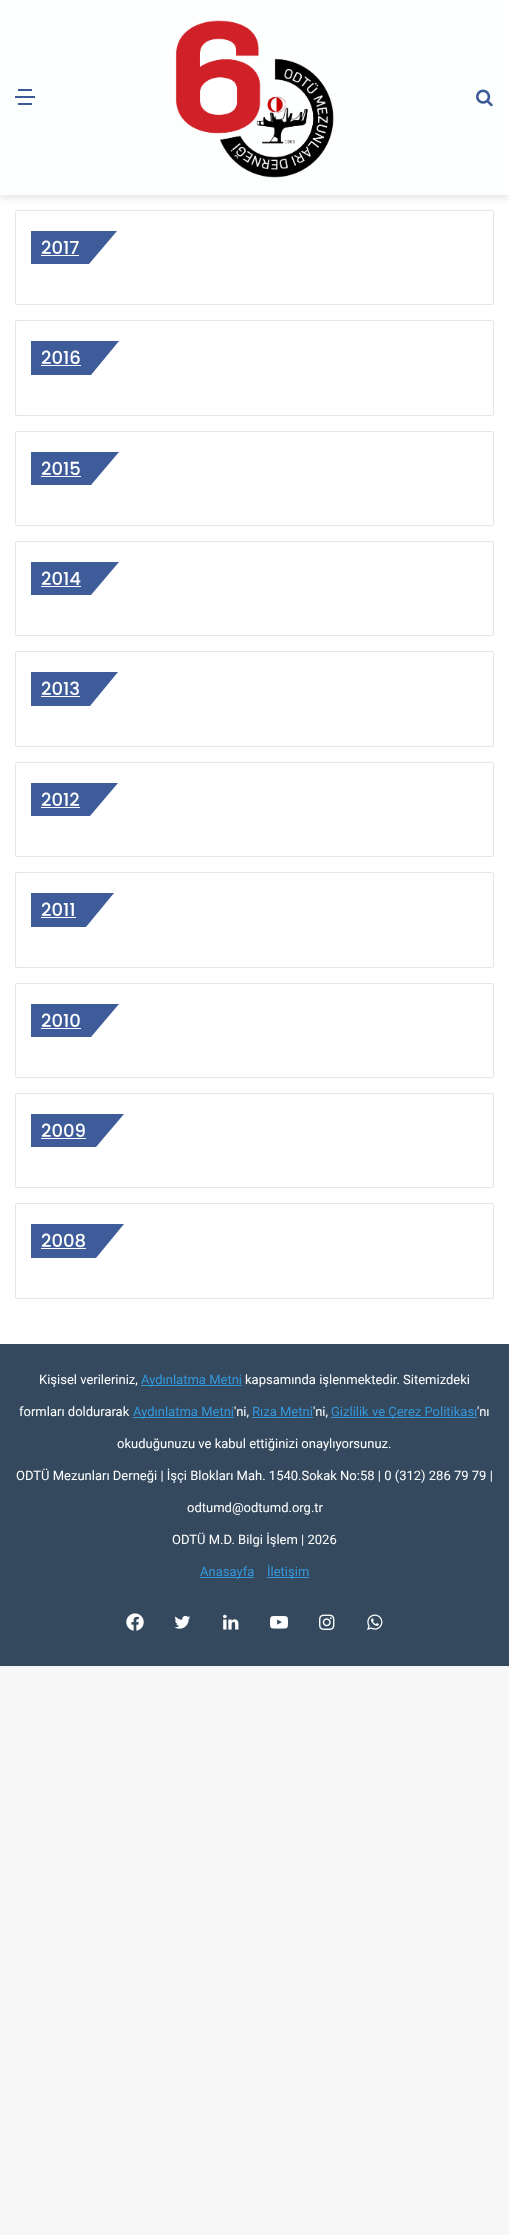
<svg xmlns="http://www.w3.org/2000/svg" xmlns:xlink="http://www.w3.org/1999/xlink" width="509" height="2235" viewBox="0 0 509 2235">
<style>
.cls-1{font:500 18px Poppins;fill:#ffffff}
.cls-2{font:13px Roboto;fill:#ffffff}
.cls-3{font:13px Roboto;fill:#3498db}
</style>
<rect width="100%" height="100%" fill="#f7f7f7"/>
<rect fill="#ffffff" x="0" y="195" width="509" height="1149"/>
<rect fill="#000000" fill-opacity="0.1" filter="blur(3.5px)" x="0" y="3" width="509" height="195"/>
<rect fill="#fdfefe" x="0" y="0" width="509" height="195"/>
<rect fill="#3b5998" x="15" y="96" width="20" height="2"/>
<rect fill="#3b5998" x="18" y="89" width="14" height="2"/>
<rect fill="#3b5998" x="18" y="103" width="14" height="2"/>
<image xlink:href="image0.png" x="175" y="20" width="159" height="158"/>
<image xlink:href="image1.png" x="476" y="89" width="17" height="18"/>
<rect fill="none" stroke="#e6e6e6" x="15.5" y="210.5" width="478" height="94" rx="1.5"/>
<rect fill="#3f5c9a" x="31" y="231" width="46" height="33"/>
<path fill="#3f5c9a" d="M77 231H117L89 264H48Z"/>
<rect fill="#ffffff" x="41" y="255" width="38" height="1"/>
<rect fill="none" stroke="#e6e6e6" x="15.5" y="320.5" width="478" height="95" rx="1.5"/>
<rect fill="#3f5c9a" x="31" y="341" width="46" height="34"/>
<path fill="#3f5c9a" d="M77 341H119L91 375H49Z"/>
<rect fill="#ffffff" x="41" y="365" width="40" height="1"/>
<rect fill="none" stroke="#e6e6e6" x="15.5" y="431.5" width="478" height="94" rx="1.5"/>
<rect fill="#3f5c9a" x="31" y="452" width="46" height="33"/>
<path fill="#3f5c9a" d="M77 452H119L91 485H49Z"/>
<rect fill="#ffffff" x="41" y="476" width="40" height="1"/>
<rect fill="none" stroke="#e6e6e6" x="15.5" y="541.5" width="478" height="94" rx="1.5"/>
<rect fill="#3f5c9a" x="31" y="562" width="46" height="33"/>
<path fill="#3f5c9a" d="M77 562H119L91 595H49Z"/>
<rect fill="#ffffff" x="41" y="586" width="40" height="1"/>
<rect fill="none" stroke="#e6e6e6" x="15.5" y="651.5" width="478" height="95" rx="1.5"/>
<rect fill="#3f5c9a" x="31" y="672" width="46" height="34"/>
<path fill="#3f5c9a" d="M77 672H118L90 706H49Z"/>
<rect fill="#ffffff" x="41" y="696" width="39" height="1"/>
<rect fill="none" stroke="#e6e6e6" x="15.5" y="762.5" width="478" height="94" rx="1.5"/>
<rect fill="#3f5c9a" x="31" y="783" width="46" height="33"/>
<path fill="#3f5c9a" d="M77 783H118L90 816H49Z"/>
<rect fill="#ffffff" x="41" y="807" width="39" height="1"/>
<rect fill="none" stroke="#e6e6e6" x="15.5" y="872.5" width="478" height="95" rx="1.5"/>
<rect fill="#3f5c9a" x="31" y="893" width="44" height="34"/>
<path fill="#3f5c9a" d="M75 893H114L86 927H47Z"/>
<rect fill="#ffffff" x="41" y="917" width="35" height="1"/>
<rect fill="none" stroke="#e6e6e6" x="15.5" y="983.5" width="478" height="94" rx="1.5"/>
<rect fill="#3f5c9a" x="31" y="1004" width="46" height="33"/>
<path fill="#3f5c9a" d="M77 1004H119L91 1037H49Z"/>
<rect fill="#ffffff" x="41" y="1028" width="40" height="1"/>
<rect fill="none" stroke="#e6e6e6" x="15.5" y="1093.5" width="478" height="94" rx="1.5"/>
<rect fill="#3f5c9a" x="31" y="1114" width="47" height="33"/>
<path fill="#3f5c9a" d="M78 1114H124L96 1147H50Z"/>
<rect fill="#ffffff" x="41" y="1138" width="45" height="1"/>
<rect fill="none" stroke="#e6e6e6" x="15.5" y="1203.5" width="478" height="95" rx="1.5"/>
<rect fill="#3f5c9a" x="31" y="1224" width="48" height="34"/>
<path fill="#3f5c9a" d="M79 1224H124L96 1258H50Z"/>
<rect fill="#ffffff" x="41" y="1248" width="45" height="1"/>
<rect fill="#34495e" x="0" y="1344" width="509" height="322"/>
<rect fill="#3498db" x="141" y="1385" width="101" height="1"/>
<rect fill="#3498db" x="133" y="1417" width="101" height="1"/>
<rect fill="#3498db" x="252" y="1417" width="61" height="1"/>
<rect fill="#3498db" x="331" y="1417" width="146" height="1"/>
<rect fill="#3498db" x="200" y="1577" width="54" height="1"/>
<rect fill="#3498db" x="267" y="1577" width="42" height="1"/>
<image xlink:href="image2.png" x="126" y="1613" width="18" height="18"/>
<image xlink:href="image3.png" x="174" y="1615" width="17" height="14"/>
<image xlink:href="image4.png" x="223" y="1614" width="16" height="16"/>
<image xlink:href="image5.png" x="270" y="1615" width="18" height="14"/>
<image xlink:href="image6.png" x="319" y="1614" width="16" height="16"/>
<image xlink:href="image7.png" x="367" y="1614" width="16" height="16"/>
<text class="cls-1" x="41" y="254">2017</text>
<text class="cls-1" x="41" y="364">2016</text>
<text class="cls-1" x="41" y="475">2015</text>
<text class="cls-1" x="41" y="585">2014</text>
<text class="cls-1" x="41" y="695">2013</text>
<text class="cls-1" x="41" y="806">2012</text>
<text class="cls-1" x="41" y="916">2011</text>
<text class="cls-1" x="41" y="1027">2010</text>
<text class="cls-1" x="41" y="1137">2009</text>
<text class="cls-1" x="41" y="1247">2008</text>
<text class="cls-2" x="39" y="1384">Kişisel verileriniz,</text>
<text class="cls-3" x="141" y="1384">Aydınlatma Metni</text>
<text class="cls-2" x="245" y="1384">kapsamında işlenmektedir. Sitemizdeki</text>
<text class="cls-2" x="19" y="1416">formları doldurarak</text>
<text class="cls-3" x="133" y="1416">Aydınlatma Metni</text>
<text class="cls-2" x="234" y="1416">'ni,</text>
<text class="cls-3" x="252" y="1416">Rıza Metni</text>
<text class="cls-2" x="313" y="1416">'ni,</text>
<text class="cls-3" x="331" y="1416">Gizlilik ve Çerez Politikası</text>
<text class="cls-2" x="477" y="1416">'nı</text>
<text class="cls-2" x="117" y="1448">okuduğunuzu ve kabul ettiğinizi onaylıyorsunuz.</text>
<text class="cls-2" x="16" y="1480">ODTÜ Mezunları Derneği | İşçi Blokları Mah. 1540.Sokak No:58 | 0 (312) 286 79 79 |</text>
<text class="cls-2" x="187" y="1512">odtumd@odtumd.org.tr</text>
<text class="cls-2" x="172" y="1544">ODTÜ M.D. Bilgi İşlem | 2026</text>
<text class="cls-3" x="200" y="1576">Anasayfa</text>
<text class="cls-3" x="267" y="1576">İletişim</text>
</svg>
